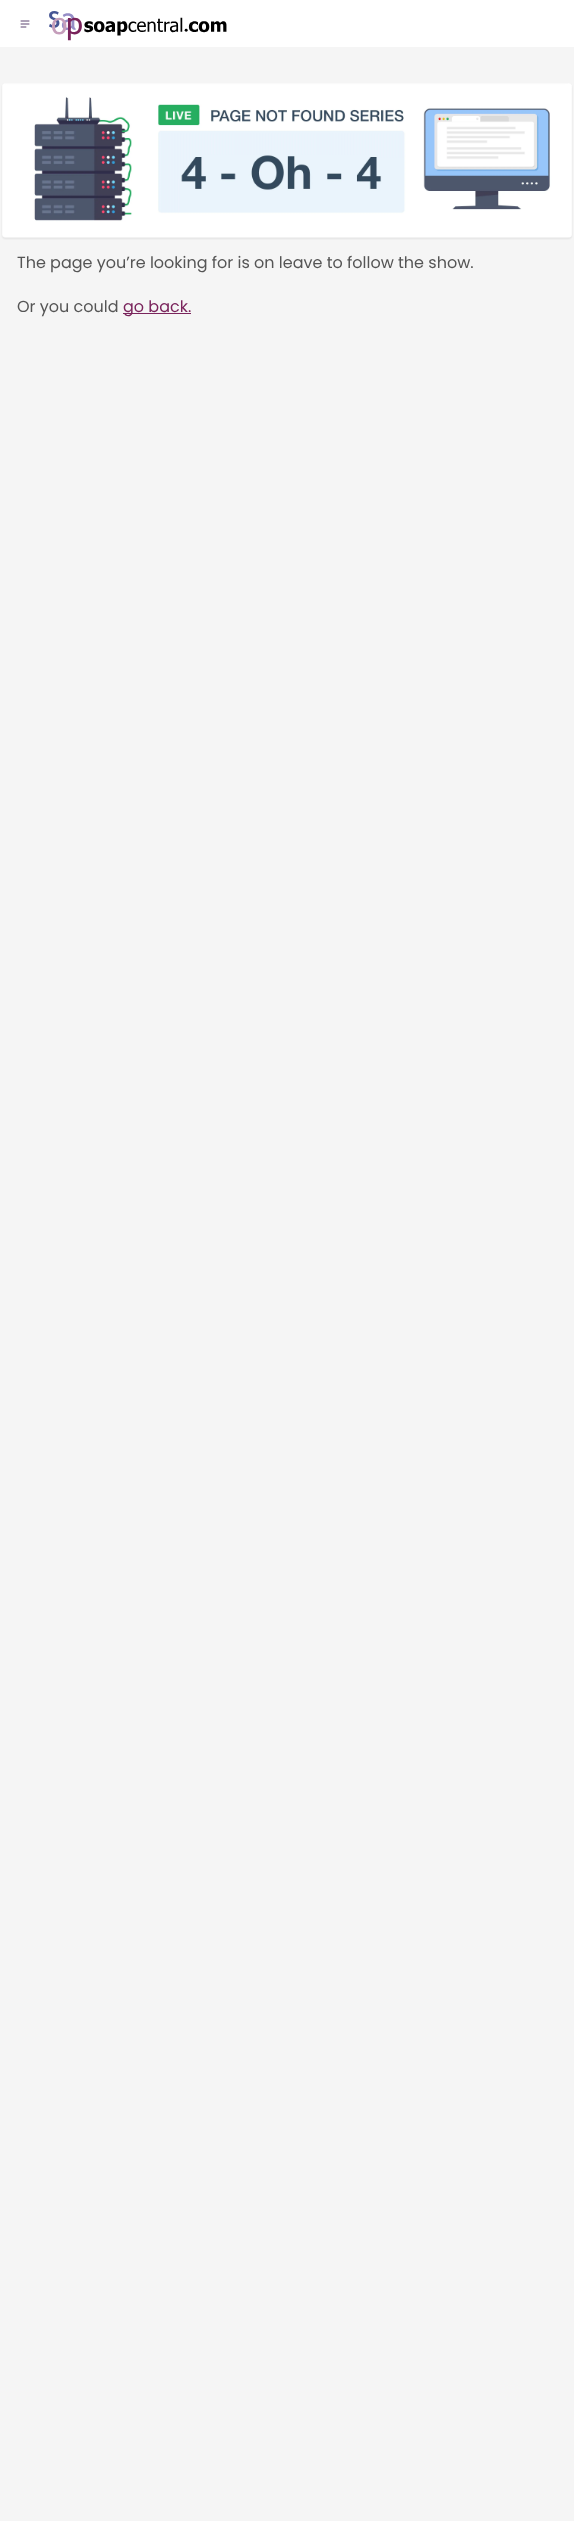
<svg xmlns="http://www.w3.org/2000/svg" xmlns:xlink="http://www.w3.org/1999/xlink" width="574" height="2521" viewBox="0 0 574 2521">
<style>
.cls-1{font:16px Poppins;fill:#555555}
.cls-2{font:16px Poppins;fill:#7a245c}
</style>
<rect width="100%" height="100%" fill="#f5f5f5"/>
<rect fill="#ffffff" x="0" y="0" width="574" height="47"/>
<image xlink:href="image0.png" x="20" y="20" width="10" height="8"/>
<image xlink:href="image1.png" x="49" y="11" width="178" height="30"/>
<image xlink:href="image2.png" x="1" y="83" width="572" height="157"/>
<rect fill="#7a245c" x="123" y="313" width="68" height="1"/>
<text class="cls-1" x="17" y="268">The page you’re looking for is on leave to follow the show.</text>
<text class="cls-1" x="17" y="312">Or you could</text>
<text class="cls-2" x="123" y="312">go back.</text>
</svg>
